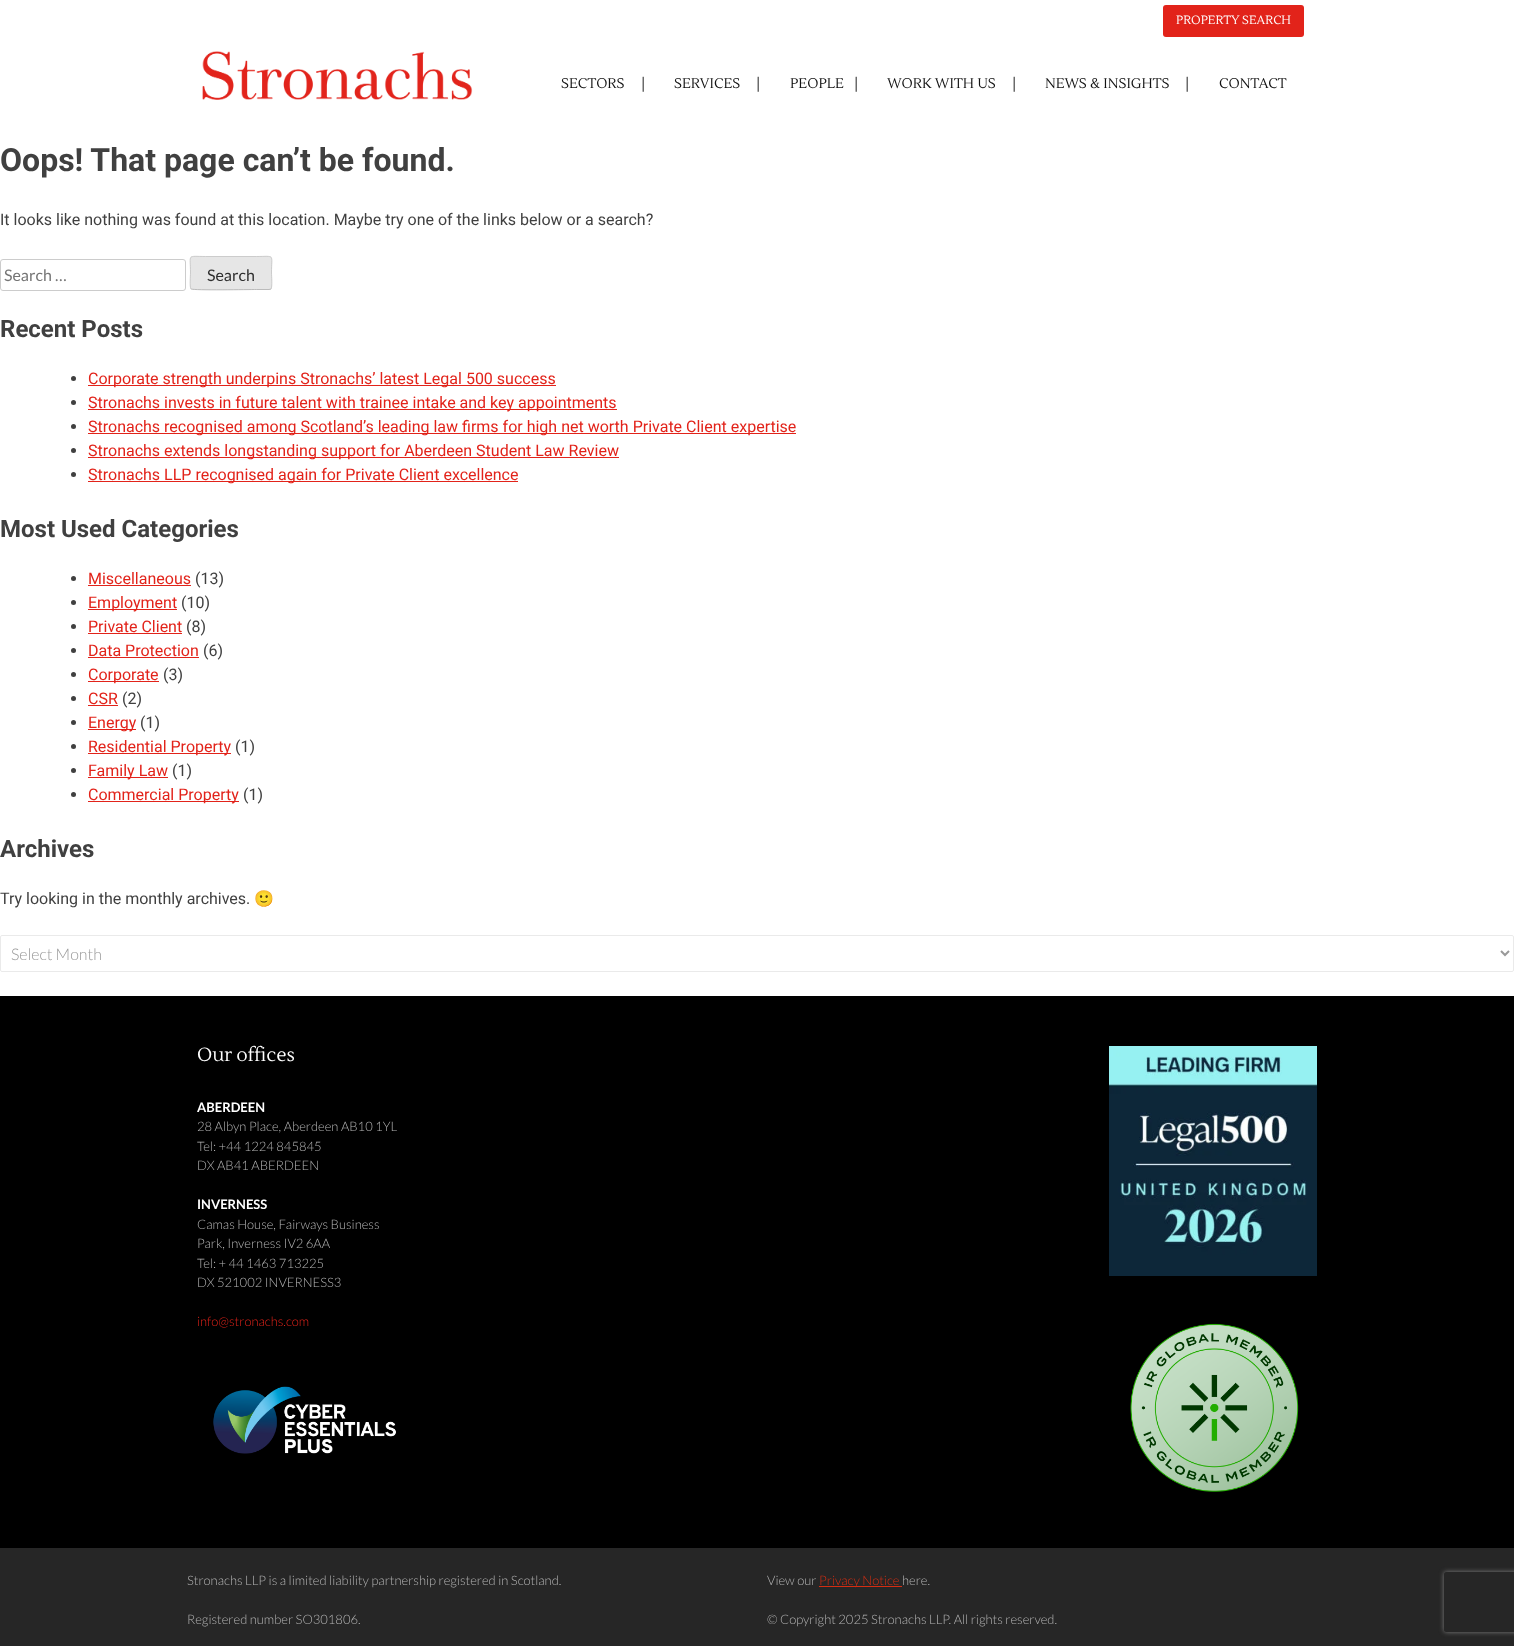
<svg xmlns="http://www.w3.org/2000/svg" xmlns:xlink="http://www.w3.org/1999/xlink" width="1514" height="1646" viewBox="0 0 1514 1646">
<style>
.cls-1{font:12px Lustria;fill:#ffffff}
.cls-2{font:14px Lustria;fill:#121212}
.cls-3{font:bold 32px Roboto;fill:#404040}
.cls-4{font:16px Roboto;fill:#404040}
.cls-5{font:16px Lato;fill:#757575}
.cls-6{font:16px Lato;fill:#2e2e2e}
.cls-7{font:bold 24px Roboto;fill:#404040}
.cls-8{font:16px Roboto;fill:#e2231a}
.cls-9{font:16px Noto Color Emoji;fill:#404040}
.cls-10{font:300 16px Lato;fill:#999999}
.cls-11{font:19px Lustria;fill:#ffffff}
.cls-12{font:bold 13px Lato;fill:#ffffff}
.cls-13{font:300 13px Lato;fill:#b3b3b3}
.cls-14{font:300 13px Lato;fill:#e2231a}
.cls-15{font:300 13px Lato;fill:#d52d12}
</style>
<defs>
<clipPath id="clip1"><path d="M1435 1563H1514V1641H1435ZM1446 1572H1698C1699 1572 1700 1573 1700 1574V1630C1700 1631 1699 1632 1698 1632H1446C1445 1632 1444 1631 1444 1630V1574C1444 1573 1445 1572 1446 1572Z" clip-rule="evenodd"/></clipPath>
</defs>
<rect width="100%" height="100%" fill="#ffffff"/>
<image xlink:href="image0.png" x="202" y="51" width="271" height="49"/>
<rect fill="#e2231a" x="1163" y="5" width="141" height="32" rx="3"/>
<rect fill="none" stroke="#cccccc" x="0.5" y="259.5" width="185" height="31" rx="2.5"/>
<rect fill="#e6e6e6" x="190" y="256" width="82" height="34" rx="3"/>
<path fill="none" stroke="#bbbbbb" d="M271 289L269 289.5H256.5C249.5 289.5 193.5 290.5 191.5 289H191"/>
<path fill="none" stroke="#cccccc" d="M191 289C189.5 287 190.5 275.5 190.5 273C190.5 253.5 186.5 256.5 205.5 256.5H256.5C275.5 256.5 271.5 253.5 271.5 273C271.5 275.5 272.5 287 271 289"/>
<circle fill="#404040" cx="73.5" cy="378.5" r="2.5"/>
<rect fill="#e2231a" x="88" y="385" width="468" height="1"/>
<circle fill="#404040" cx="73.5" cy="402.5" r="2.5"/>
<rect fill="#e2231a" x="88" y="409" width="529" height="1"/>
<circle fill="#404040" cx="73.5" cy="426.5" r="2.5"/>
<rect fill="#e2231a" x="88" y="433" width="708" height="1"/>
<circle fill="#404040" cx="73.5" cy="450.5" r="2.5"/>
<rect fill="#e2231a" x="88" y="457" width="531" height="1"/>
<circle fill="#404040" cx="73.5" cy="474.5" r="2.5"/>
<rect fill="#e2231a" x="88" y="481" width="430" height="1"/>
<circle fill="#404040" cx="73.5" cy="578.5" r="2.5"/>
<rect fill="#e2231a" x="88" y="585" width="103" height="1"/>
<circle fill="#404040" cx="73.5" cy="602.5" r="2.5"/>
<rect fill="#e2231a" x="88" y="609" width="89" height="1"/>
<circle fill="#404040" cx="73.5" cy="626.5" r="2.5"/>
<rect fill="#e2231a" x="88" y="633" width="94" height="1"/>
<circle fill="#404040" cx="73.5" cy="650.5" r="2.5"/>
<rect fill="#e2231a" x="88" y="657" width="111" height="1"/>
<circle fill="#404040" cx="73.5" cy="674.5" r="2.5"/>
<rect fill="#e2231a" x="88" y="681" width="71" height="1"/>
<circle fill="#404040" cx="73.5" cy="698.5" r="2.5"/>
<rect fill="#e2231a" x="88" y="705" width="30" height="1"/>
<circle fill="#404040" cx="73.5" cy="722.5" r="2.5"/>
<rect fill="#e2231a" x="88" y="729" width="48" height="1"/>
<circle fill="#404040" cx="73.5" cy="746.5" r="2.5"/>
<rect fill="#e2231a" x="88" y="753" width="143" height="1"/>
<circle fill="#404040" cx="73.5" cy="770.5" r="2.5"/>
<rect fill="#e2231a" x="88" y="777" width="80" height="1"/>
<circle fill="#404040" cx="73.5" cy="794.5" r="2.5"/>
<rect fill="#e2231a" x="88" y="801" width="151" height="1"/>
<rect fill="none" stroke="#eaeaea" x="0.5" y="935.5" width="1513" height="36" rx="1.5"/>
<path fill="none" stroke="#999999" stroke-width="2" d="M1501 951L1505 955L1509 951"/>
<rect fill="#000000" x="0" y="996" width="1514" height="552"/>
<image xlink:href="image1.png" x="213" y="1386" width="183" height="68"/>
<image xlink:href="image2.png" x="1109" y="1046" width="208" height="230"/>
<image xlink:href="image3.png" x="1130" y="1323" width="169" height="169"/>
<rect fill="#262626" x="0" y="1548" width="1514" height="98"/>
<rect fill="#d52d12" x="819" y="1586" width="83" height="1"/>
<g clip-path="url(#clip1)">
<rect fill="#808080" filter="blur(2.5px)" x="1444" y="1572" width="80" height="60" rx="2"/>
</g>
<text class="cls-1" x="1176" y="24">PROPERTY SEARCH</text>
<text class="cls-2" x="561" y="88">SECTORS</text>
<text class="cls-2" x="641" y="88">|</text>
<text class="cls-2" x="674" y="88">SERVICES</text>
<text class="cls-2" x="756" y="88">|</text>
<text class="cls-2" x="790" y="88">PEOPLE</text>
<text class="cls-2" x="854" y="88">|</text>
<text class="cls-2" x="887" y="88">WORK WITH US</text>
<text class="cls-2" x="1012" y="88">|</text>
<text class="cls-2" x="1045" y="88">NEWS &amp; INSIGHTS</text>
<text class="cls-2" x="1185" y="88">|</text>
<text class="cls-2" x="1219" y="88">CONTACT</text>
<text class="cls-3" x="0" y="171">Oops! That page can’t be found.</text>
<text class="cls-4" x="0" y="225">It looks like nothing was found at this location. Maybe try one of the links below or a search?</text>
<text class="cls-5" x="4" y="281">Search …</text>
<text class="cls-6" x="207" y="281">Search</text>
<text class="cls-7" x="0" y="337">Recent Posts</text>
<text class="cls-8"><tspan x="88" y="384">Corporate strength underpins Stronachs’ latest Legal 500 success</tspan><tspan x="88" y="408">Stronachs invests in future talent with trainee intake and key appointments</tspan><tspan x="88" y="432">Stronachs recognised among Scotland’s leading law firms for high net worth Private Client expertise</tspan><tspan x="88" y="456">Stronachs extends longstanding support for Aberdeen Student Law Review</tspan><tspan x="88" y="480">Stronachs LLP recognised again for Private Client excellence</tspan></text>
<text class="cls-7" x="0" y="537">Most Used Categories</text>
<text class="cls-8" x="88" y="584">Miscellaneous</text>
<text class="cls-4" x="195" y="584">(13)</text>
<text class="cls-8" x="88" y="608">Employment</text>
<text class="cls-4" x="181" y="608">(10)</text>
<text class="cls-8" x="88" y="632">Private Client</text>
<text class="cls-4" x="186" y="632">(8)</text>
<text class="cls-8" x="88" y="656">Data Protection</text>
<text class="cls-4" x="203" y="656">(6)</text>
<text class="cls-8" x="88" y="680">Corporate</text>
<text class="cls-4" x="163" y="680">(3)</text>
<text class="cls-8" x="88" y="704">CSR</text>
<text class="cls-4" x="122" y="704">(2)</text>
<text class="cls-8" x="88" y="728">Energy</text>
<text class="cls-4" x="140" y="728">(1)</text>
<text class="cls-8" x="88" y="752">Residential Property</text>
<text class="cls-4" x="235" y="752">(1)</text>
<text class="cls-8" x="88" y="776">Family Law</text>
<text class="cls-4" x="172" y="776">(1)</text>
<text class="cls-8" x="88" y="800">Commercial Property</text>
<text class="cls-4" x="243" y="800">(1)</text>
<text class="cls-7" x="0" y="857">Archives</text>
<text class="cls-4" x="0" y="904">Try looking in the monthly archives.</text>
<text class="cls-9" x="254" y="904">🙂</text>
<text class="cls-10" x="11" y="960">Select Month</text>
<text class="cls-11" x="197" y="1061">Our offices</text>
<text class="cls-12" x="197" y="1112">ABERDEEN</text>
<text class="cls-13"><tspan x="197" y="1131">28 Albyn Place, Aberdeen AB10 1YL</tspan><tspan x="197" y="1151">Tel: +44 1224 845845</tspan><tspan x="197" y="1170">DX AB41 ABERDEEN</tspan></text>
<text class="cls-12" x="197" y="1209">INVERNESS</text>
<text class="cls-13"><tspan x="197" y="1229">Camas House, Fairways Business</tspan><tspan x="197" y="1248">Park, Inverness IV2 6AA</tspan><tspan x="197" y="1268">Tel: + 44 1463 713225</tspan><tspan x="197" y="1287">DX 521002 INVERNESS3</tspan></text>
<text class="cls-14" x="197" y="1326">info@stronachs.com</text>
<text class="cls-13" x="187" y="1585">Stronachs LLP is a limited liability partnership registered in Scotland.</text>
<text class="cls-13" x="187" y="1624">Registered number SO301806.</text>
<text class="cls-13" x="767" y="1585">View our</text>
<text class="cls-15" x="819" y="1585">Privacy Notice</text>
<text class="cls-13" x="902" y="1585">here.</text>
<text class="cls-13" x="767" y="1624">© Copyright 2025 Stronachs LLP. All rights reserved.</text>
</svg>
